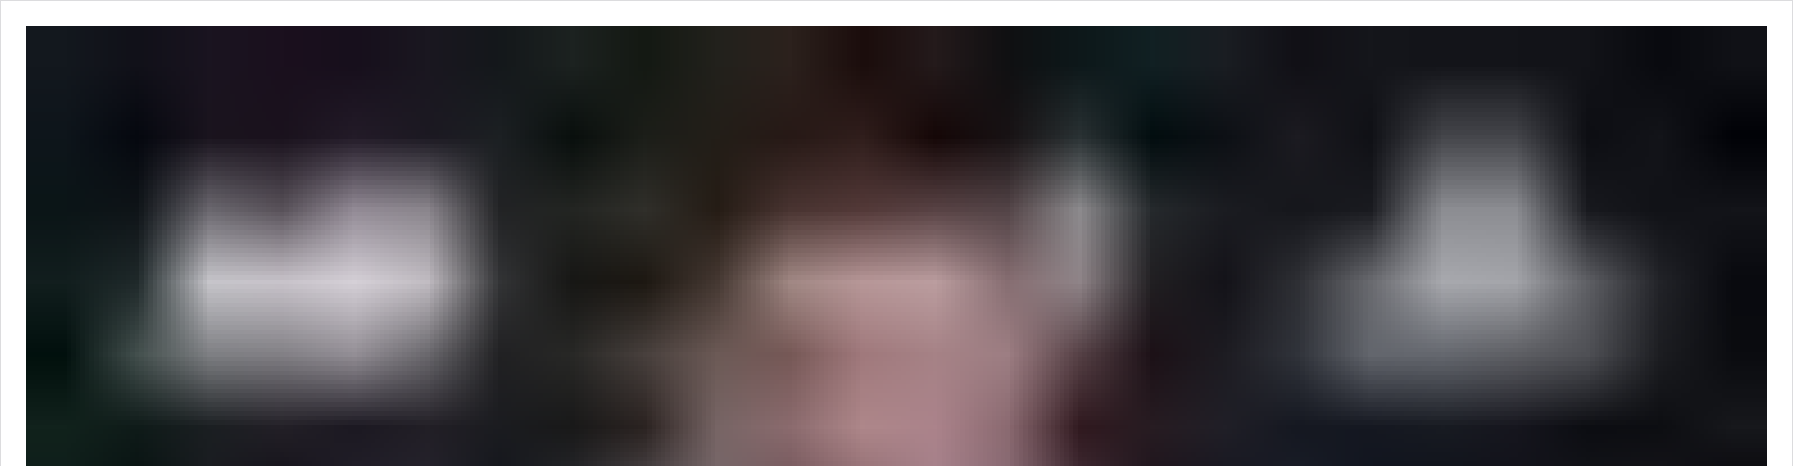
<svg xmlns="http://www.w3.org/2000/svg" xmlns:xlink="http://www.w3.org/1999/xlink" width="1793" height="466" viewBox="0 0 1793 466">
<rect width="100%" height="100%" fill="#ffffff"/>
<rect fill="none" stroke="#dcdcde" x="0.5" y="0.5" width="1792" height="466"/>
<image xlink:href="image0.png" x="26" y="26" width="1741" height="440"/>
</svg>
